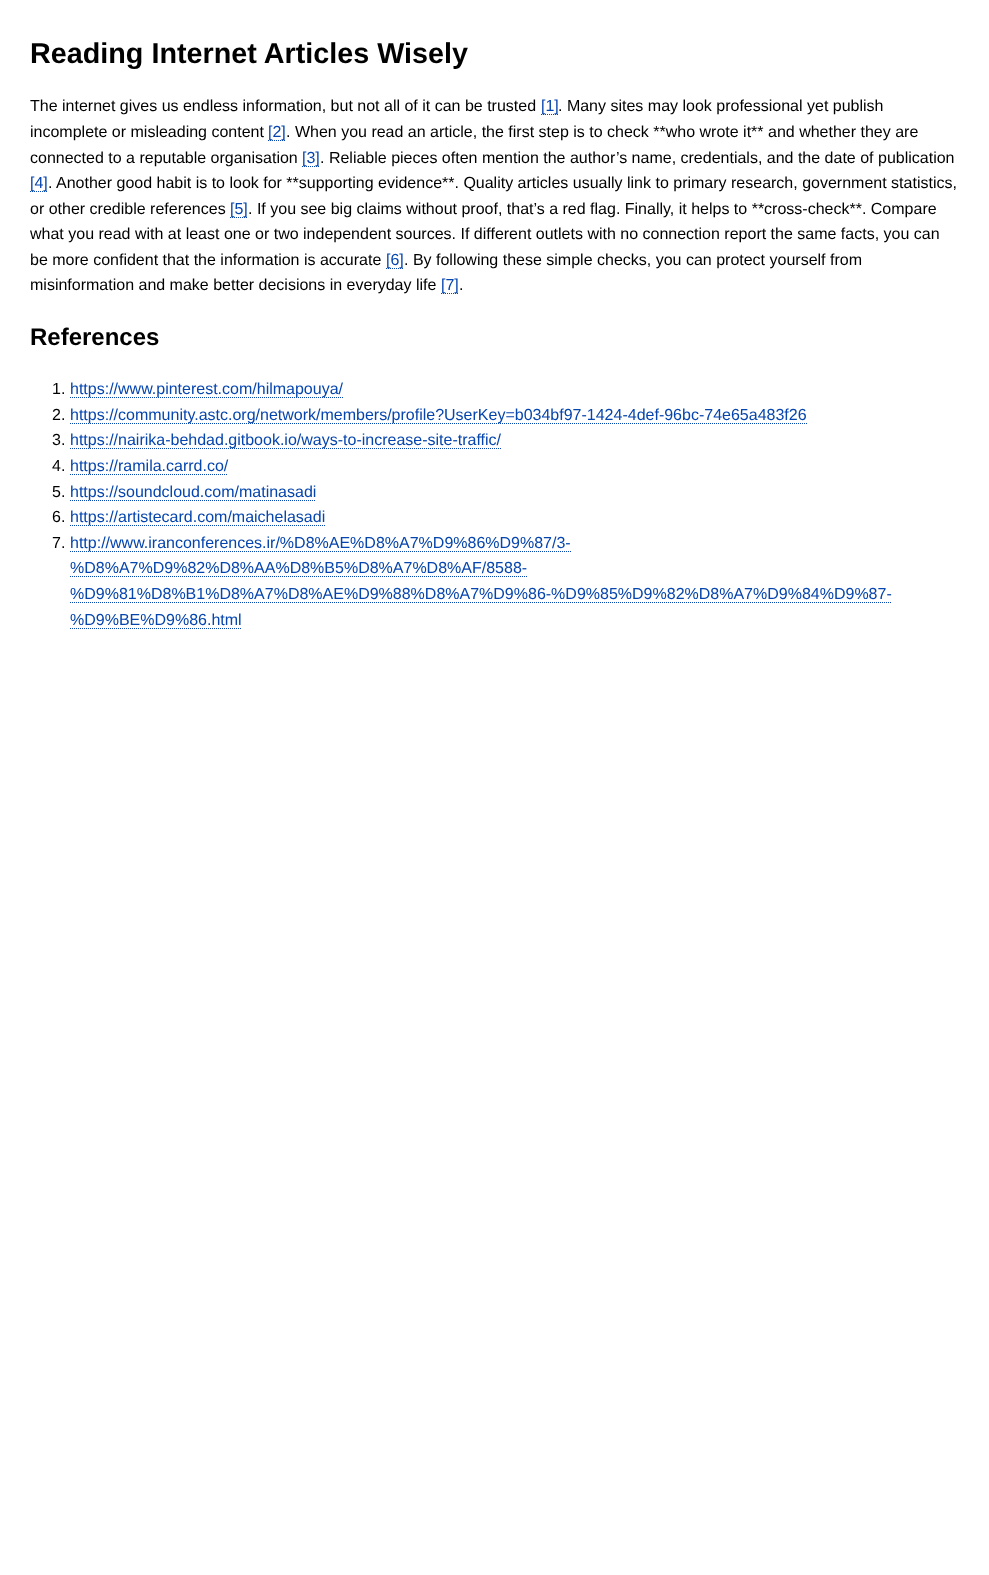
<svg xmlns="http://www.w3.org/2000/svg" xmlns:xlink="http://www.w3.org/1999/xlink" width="989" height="1575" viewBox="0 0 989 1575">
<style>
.cls-1{font:bold 28.75px Liberation Sans;fill:#000000}
.cls-2{font:16px Liberation Sans;fill:#000000}
.cls-3{font:16px Liberation Sans;fill:#0645ad}
.cls-4{font:bold 24px Liberation Sans;fill:#000000}
</style>
<rect width="100%" height="100%" fill="#ffffff"/>
<path fill="none" stroke="#0645ad" stroke-dasharray="1 1" d="M541 114.5H558"/>
<path fill="none" stroke="#0645ad" stroke-dasharray="1 1" d="M268 140.5H286"/>
<path fill="none" stroke="#0645ad" stroke-dasharray="1 1" d="M302 166.5H320"/>
<path fill="none" stroke="#0645ad" stroke-dasharray="1 1" d="M30 191.5H48"/>
<path fill="none" stroke="#0645ad" stroke-dasharray="1 1" d="M230 217.5H248"/>
<path fill="none" stroke="#0645ad" stroke-dasharray="1 1" d="M386 268.5H404"/>
<path fill="none" stroke="#0645ad" stroke-dasharray="1 1" d="M441 293.5H459"/>
<path fill="none" stroke="#0645ad" stroke-dasharray="1 1" d="M70 397.5H343"/>
<path fill="none" stroke="#0645ad" stroke-dasharray="1 1" d="M70 423.5H807"/>
<path fill="none" stroke="#0645ad" stroke-dasharray="1 1" d="M70 448.5H501"/>
<path fill="none" stroke="#0645ad" stroke-dasharray="1 1" d="M70 474.5H228"/>
<path fill="none" stroke="#0645ad" stroke-dasharray="1 1" d="M70 500.5H316"/>
<path fill="none" stroke="#0645ad" stroke-dasharray="1 1" d="M70 525.5H325"/>
<path fill="none" stroke="#0645ad" stroke-dasharray="1 1" d="M70 551.5H571"/>
<path fill="none" stroke="#0645ad" stroke-dasharray="1 1" d="M70 576.5H527"/>
<path fill="none" stroke="#0645ad" stroke-dasharray="1 1" d="M70 602.5H892"/>
<path fill="none" stroke="#0645ad" stroke-dasharray="1 1" d="M70 628.5H242"/>
<text class="cls-1" x="30" y="63">Reading Internet Articles Wisely</text>
<text class="cls-2" x="30" y="111">The internet gives us endless information, but not all of it can be trusted</text>
<text class="cls-3" x="541" y="111">[1]</text>
<text class="cls-2" x="558" y="111">. Many sites may look professional yet publish</text>
<text class="cls-2" x="30" y="137">incomplete or misleading content</text>
<text class="cls-3" x="268" y="137">[2]</text>
<text class="cls-2" x="286" y="137">. When you read an article, the first step is to check **who wrote it** and whether they are</text>
<text class="cls-2" x="30" y="163">connected to a reputable organisation</text>
<text class="cls-3" x="302" y="163">[3]</text>
<text class="cls-2" x="320" y="163">. Reliable pieces often mention the author’s name, credentials, and the date of publication</text>
<text class="cls-3" x="30" y="188">[4]</text>
<text class="cls-2" x="48" y="188">.</text>
<text class="cls-2" x="56" y="188">Another good habit is to look for **supporting evidence**. Quality articles usually link to primary research, government statistics,</text>
<text class="cls-2" x="30" y="214">or other credible references</text>
<text class="cls-3" x="230" y="214">[5]</text>
<text class="cls-2" x="248" y="214">. If you see big claims without proof, that’s a red flag. Finally, it helps to **cross-check**. Compare</text>
<text class="cls-2"><tspan x="30" y="239">what you read with at least one or two independent sources. If different outlets with no connection report the same facts, you can</tspan><tspan x="30" y="265">be more confident that the information is accurate</tspan></text>
<text class="cls-3" x="386" y="265">[6]</text>
<text class="cls-2" x="404" y="265">. By following these simple checks, you can protect yourself from</text>
<text class="cls-2" x="30" y="290">misinformation and make better decisions in everyday life</text>
<text class="cls-3" x="441" y="290">[7]</text>
<text class="cls-2" x="459" y="290">.</text>
<text class="cls-4" x="30" y="345">References</text>
<text class="cls-2" x="52" y="394">1.</text>
<text class="cls-3" x="70" y="394">https://www.pinterest.com/hilmapouya/</text>
<text class="cls-2" x="52" y="420">2.</text>
<text class="cls-3" x="70" y="420">https://community.astc.org/network/members/profile?UserKey=b034bf97-1424-4def-96bc-74e65a483f26</text>
<text class="cls-2" x="52" y="445">3.</text>
<text class="cls-3" x="70" y="445">https://nairika-behdad.gitbook.io/ways-to-increase-site-traffic/</text>
<text class="cls-2" x="52" y="471">4.</text>
<text class="cls-3" x="70" y="471">https://ramila.carrd.co/</text>
<text class="cls-2" x="52" y="497">5.</text>
<text class="cls-3" x="70" y="497">https://soundcloud.com/matinasadi</text>
<text class="cls-2" x="52" y="522">6.</text>
<text class="cls-3" x="70" y="522">https://artistecard.com/maichelasadi</text>
<text class="cls-2" x="52" y="548">7.</text>
<text class="cls-3"><tspan x="70" y="548">http://www.iranconferences.ir/%D8%AE%D8%A7%D9%86%D9%87/3-</tspan><tspan x="70" y="573">%D8%A7%D9%82%D8%AA%D8%B5%D8%A7%D8%AF/8588-</tspan><tspan x="70" y="599">%D9%81%D8%B1%D8%A7%D8%AE%D9%88%D8%A7%D9%86-%D9%85%D9%82%D8%A7%D9%84%D9%87-</tspan><tspan x="70" y="625">%D9%BE%D9%86.html</tspan></text>
</svg>
